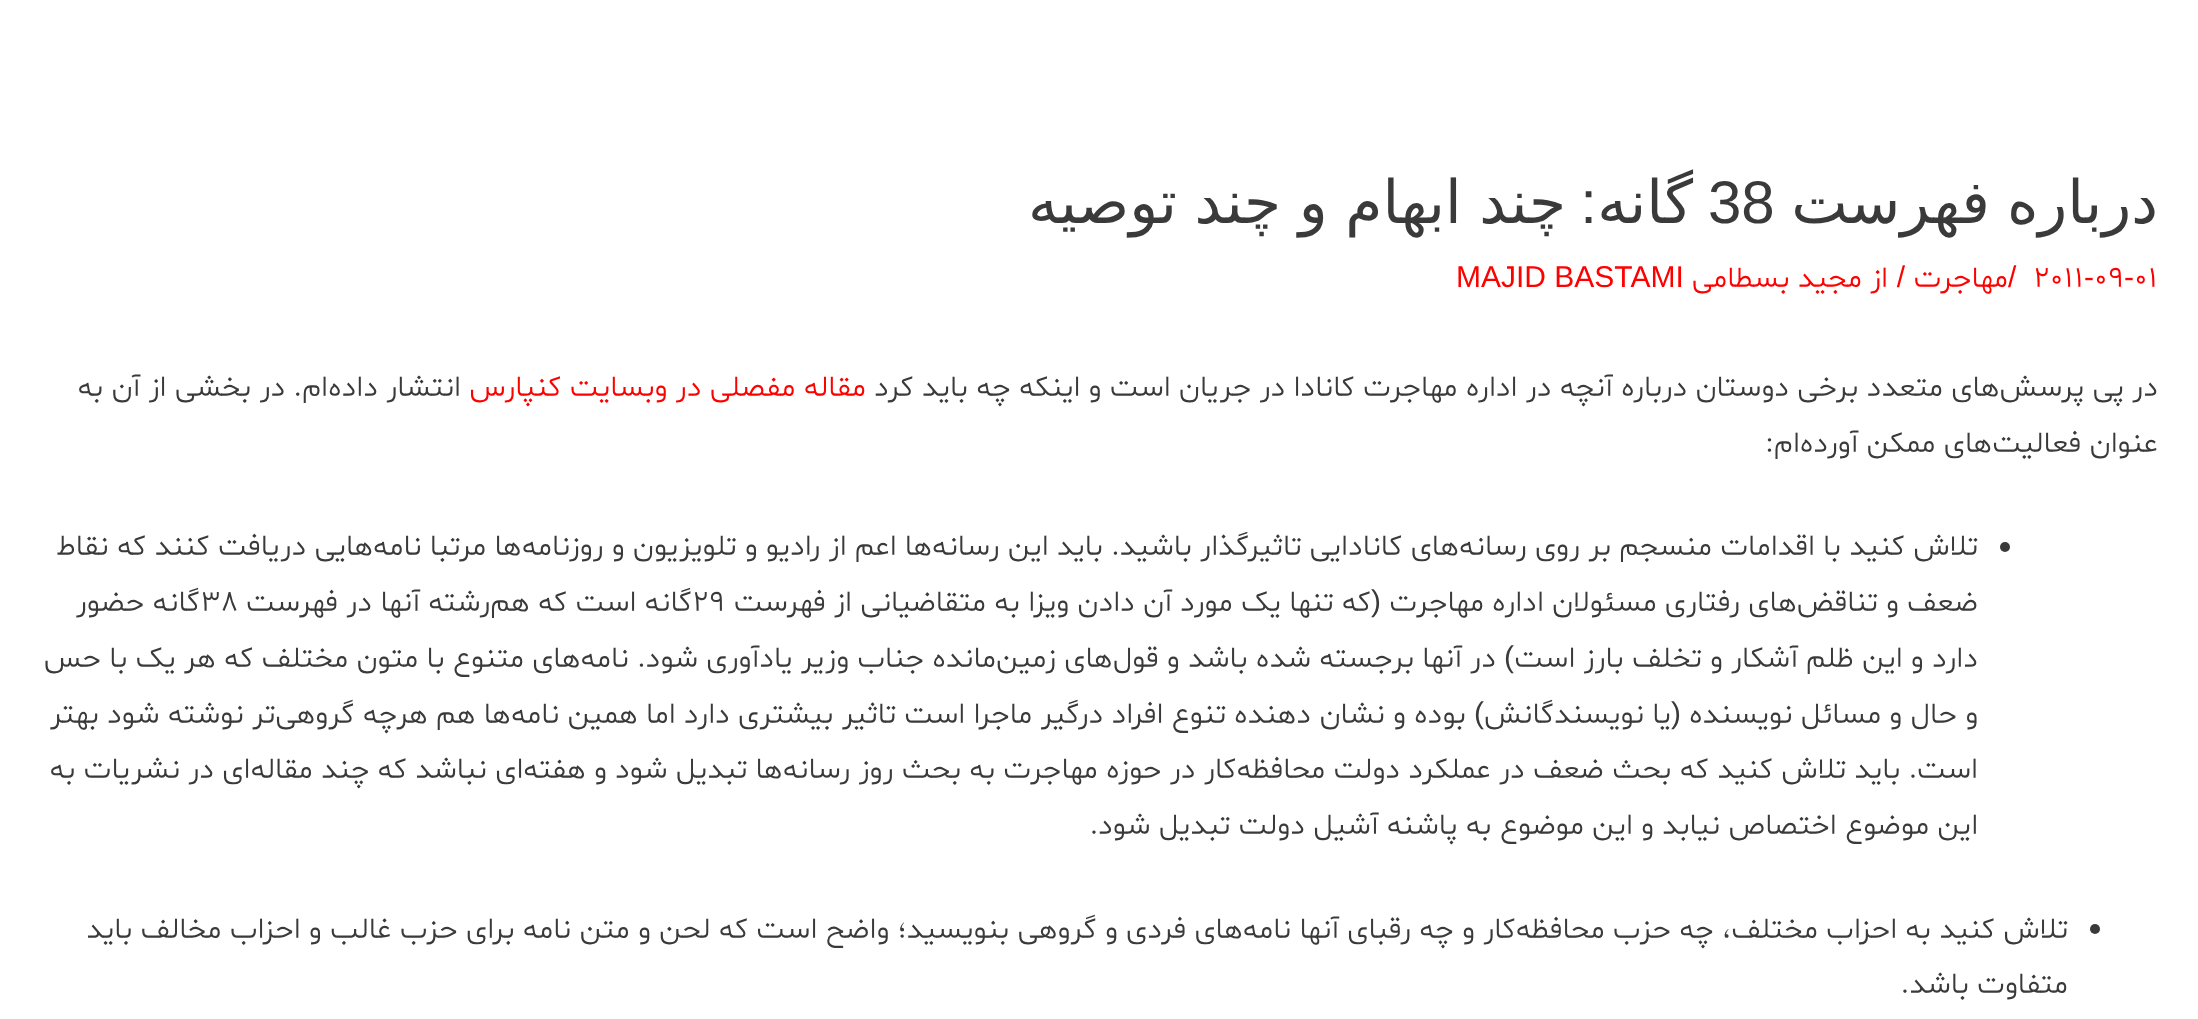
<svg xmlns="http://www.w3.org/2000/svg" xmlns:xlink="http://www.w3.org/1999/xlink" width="2198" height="1019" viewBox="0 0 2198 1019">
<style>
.cls-1{font:60px DejaVu Sans;direction:rtl;fill:#3a3a3a}
.cls-2{font:60px Liberation Sans;fill:#3a3a3a}
.cls-3{font:60px Liberation Sans;direction:rtl;fill:#3a3a3a}
.cls-4{font:300 30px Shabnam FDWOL;fill:#ff0000}
.cls-5{font:30px Liberation Sans;fill:#ff0000}
.cls-6{font:300 30px Shabnam FDWOL;direction:rtl;fill:#ff0000}
.cls-7{font:30px Liberation Sans;direction:rtl;fill:#ff0000}
.cls-8{font:300 30px Shabnam FDWOL;direction:rtl;fill:#3a3a3a}
.cls-9{font:30px Liberation Sans;direction:rtl;fill:#3a3a3a}
.cls-10{font:300 30px Shabnam FDWOL;fill:#3a3a3a}
</style>
<rect width="100%" height="100%" fill="#ffffff"/>
<circle fill="#3a3a3a" cx="2005" cy="547" r="5"/>
<circle fill="#3a3a3a" cx="2095" cy="929" r="5"/>
<text class="cls-1" x="2158" y="223" word-spacing="-2">درباره فهرست</text>
<text class="cls-2" x="1708" y="223">38</text>
<text class="cls-1" x="1693" y="223">گانه</text>
<text class="cls-3" x="1597" y="223">:</text>
<text class="cls-1" x="1566" y="223" word-spacing="-1.5">چند ابهام و چند توصیه</text>
<text class="cls-4" x="2134" y="287">01</text>
<text class="cls-5" x="2124" y="287">-</text>
<text class="cls-4" x="2094" y="287">09</text>
<text class="cls-5" x="2084" y="287">-</text>
<text class="cls-4" x="2033" y="287">2011</text>
<text class="cls-5" x="2008" y="287">/</text>
<text class="cls-6" x="2008" y="287">مهاجرت</text>
<text class="cls-7" x="1905" y="287">/</text>
<text class="cls-6" x="1888" y="287">از</text>
<text class="cls-6" x="1862" y="287">مجید بسطامی</text>
<text class="cls-5" x="1456" y="287">MAJID BASTAMI</text>
<text class="cls-8" x="2158" y="396">در پی پرسش‌های متعدد برخی دوستان درباره آنچه در اداره مهاجرت کانادا در جریان است و اینکه چه باید کرد</text>
<text class="cls-6" x="866" y="396">مقاله مفصلی در وبسایت کنپارس</text>
<text class="cls-8" x="461" y="396">انتشار داده‌ام. در بخشی از آن به</text>
<text class="cls-8" x="2158" y="452">عنوان فعالیت‌های ممکن آورده‌ام:</text>
<text class="cls-8"><tspan x="1978" y="555">تلاش کنید با اقدامات منسجم بر روی رسانه‌‌های کانادایی تاثیرگذار باشید. باید این رسانه‌ها اعم از رادیو و تلویزیون و روزنامه‌ها مرتبا نامه‌هایی دریافت کنند که نقاط</tspan><tspan x="1978" y="611">ضعف و تناقض‌های رفتاری مسئولان اداره مهاجرت</tspan></text>
<text class="cls-9" x="1381" y="611">(</text>
<text class="cls-8" x="1371" y="611">که تنها یک مورد آن دادن ویزا به متقاضیانی از فهرست</text>
<text class="cls-10" x="692" y="611">۲۹</text>
<text class="cls-8" x="692" y="611">گانه است که هم‌رشته آنها در فهرست</text>
<text class="cls-10" x="200" y="611">۳۸</text>
<text class="cls-8" x="200" y="611">گانه حضور</text>
<text class="cls-8" x="1978" y="667">دارد و این ظلم آشکار و تخلف بارز است</text>
<text class="cls-9" x="1514" y="667">)</text>
<text class="cls-8" x="1496" y="667">در آنها برجسته شده باشد و قول‌های زمین‌مانده جناب وزیر یادآوری شود. نامه‌های متنوع با متون مختلف که هر یک با حس</text>
<text class="cls-8" x="1978" y="723">و حال و مسائل نویسنده</text>
<text class="cls-9" x="1681" y="723">(</text>
<text class="cls-8" x="1671" y="723">یا نویسندگانش</text>
<text class="cls-9" x="1484" y="723">)</text>
<text class="cls-8" x="1466" y="723">بوده و نشان دهنده تنوع افراد درگیر ماجرا است تاثیر بیشتری دارد اما همین نامه‌ها هم هرچه گروهی‌تر نوشته شود بهتر</text>
<text class="cls-8"><tspan x="1978" y="778">است. باید تلاش کنید که بحث ضعف در عملکرد دولت محافظه‌کار در حوزه مهاجرت به بحث روز رسانه‌ها تبدیل شود و هفته‌ای نباشد که چند مقاله‌ای در نشریات به</tspan><tspan x="1978" y="834">این موضوع اختصاص نیابد و این موضوع به پاشنه آشیل دولت تبدیل شود.</tspan></text>
<text class="cls-8"><tspan x="2068" y="938">تلاش کنید به احزاب مختلف، چه حزب محافظه‌کار و چه رقبای آنها نامه‌های فردی و گروهی بنویسید؛ واضح است که لحن و متن نامه برای حزب غالب و احزاب مخالف باید</tspan><tspan x="2068" y="993">متفاوت باشد.</tspan></text>
</svg>
